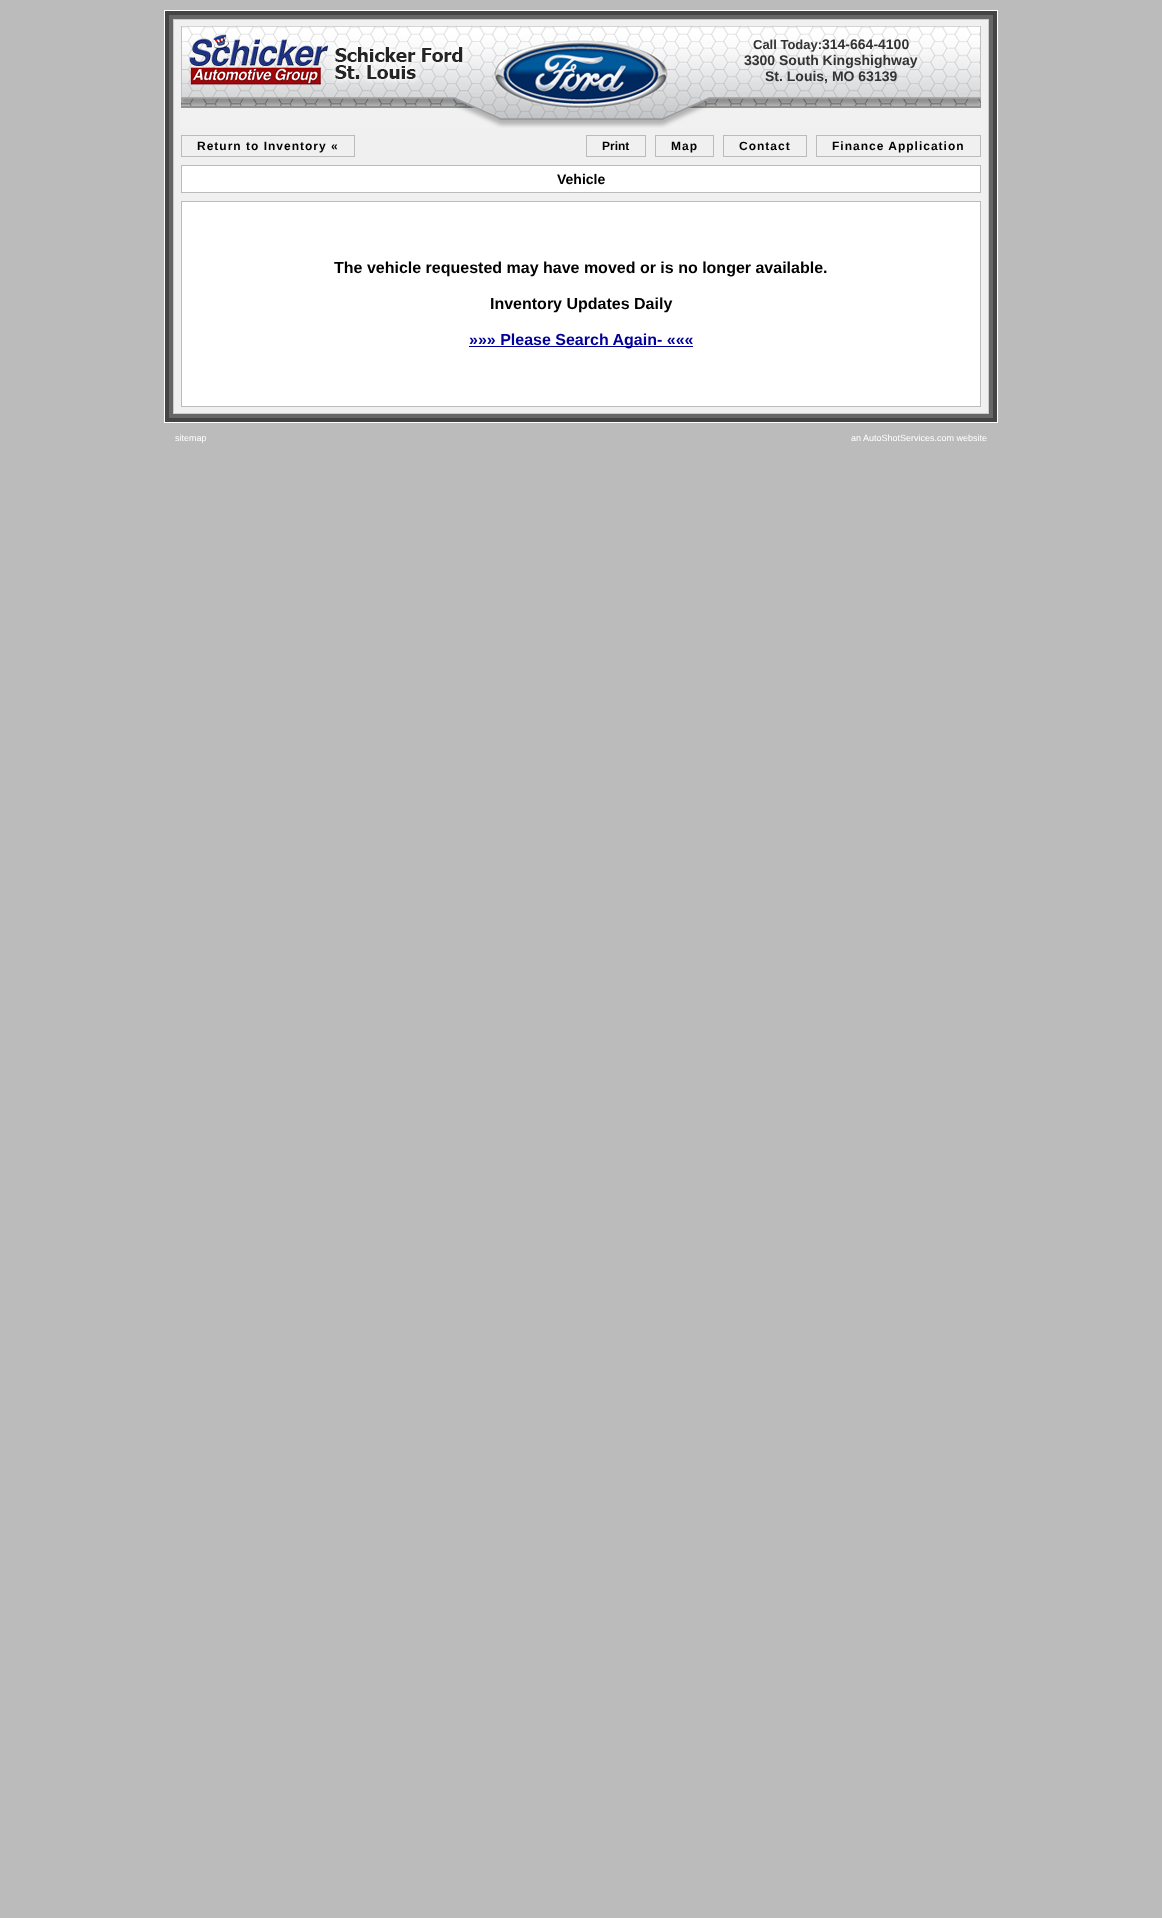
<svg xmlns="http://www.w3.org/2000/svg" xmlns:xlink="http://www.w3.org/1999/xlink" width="1162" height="1918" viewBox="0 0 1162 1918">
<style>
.cls-1{font:bold 13px Liberation Sans;fill:#333333}
.cls-2{font:bold 14px Liberation Sans;fill:#333333}
.cls-3{font:bold 12px Liberation Sans;letter-spacing:1px;fill:#000000}
.cls-4{font:bold 12px Liberation Sans;fill:#000000}
.cls-5{font:bold 14px Liberation Sans;fill:#000000}
.cls-6{font:bold 16px Liberation Sans;fill:#000000}
.cls-7{font:bold 16px Liberation Sans;fill:#000099}
.cls-8{font:9px Liberation Sans;fill:#ffffff}
</style>
<rect width="100%" height="100%" fill="#bbbbbb"/>
<rect fill="none" stroke="#ffffff" x="164.5" y="10.5" width="833" height="412"/>
<rect fill="#666666" stroke="#444444" stroke-width="4" x="167" y="13" width="828" height="407"/>
<rect fill="#f0f0f0" stroke="#cccccc" x="173.5" y="19.5" width="815" height="394"/>
<image xlink:href="image0.png" x="181" y="26" width="800" height="102"/>
<rect fill="none" stroke="#bbbbbb" x="181.5" y="135.5" width="173" height="21"/>
<rect fill="none" stroke="#bbbbbb" x="586.5" y="135.5" width="59" height="21"/>
<rect fill="none" stroke="#bbbbbb" x="655.5" y="135.5" width="58" height="21"/>
<rect fill="none" stroke="#bbbbbb" x="723.5" y="135.5" width="83" height="21"/>
<rect fill="none" stroke="#bbbbbb" x="816.5" y="135.5" width="164" height="21"/>
<rect fill="#ffffff" x="182" y="166" width="798" height="26"/>
<rect fill="#bbbbbb" x="181" y="165" width="800" height="1"/>
<rect fill="#bbbbbb" x="980" y="165" width="1" height="28"/>
<rect fill="#bbbbbb" x="181" y="192" width="800" height="1"/>
<rect fill="#bbbbbb" x="181" y="165" width="1" height="28"/>
<rect fill="#ffffff" x="182" y="202" width="798" height="204"/>
<rect fill="#bbbbbb" x="181" y="201" width="800" height="1"/>
<rect fill="#bbbbbb" x="980" y="201" width="1" height="206"/>
<rect fill="#bbbbbb" x="181" y="406" width="800" height="1"/>
<rect fill="#bbbbbb" x="181" y="201" width="1" height="206"/>
<rect fill="#000099" x="469" y="346" width="224" height="1"/>
<text class="cls-1" x="753" y="49">Call Today:</text>
<text class="cls-2" x="822" y="49">314-664-4100</text>
<text class="cls-2" x="744" y="65">3300 South Kingshighway</text>
<text class="cls-2" x="765" y="81">St. Louis, MO 63139</text>
<text class="cls-3" x="197" y="150">Return to Inventory «</text>
<text class="cls-4" x="602" y="150">Print</text>
<text class="cls-3" x="671" y="150">Map</text>
<text class="cls-3" x="739" y="150">Contact</text>
<text class="cls-3" x="832" y="150">Finance Application</text>
<text class="cls-5" x="557" y="184">Vehicle</text>
<text class="cls-6" x="334" y="273">The vehicle requested may have moved or is no longer available.</text>
<text class="cls-6" x="490" y="309">Inventory Updates Daily</text>
<text class="cls-7" x="469" y="345">»»» Please Search Again- «««</text>
<text class="cls-8" x="175" y="441">sitemap</text>
<text class="cls-8" x="851" y="441">an AutoShotServices.com website</text>
</svg>
